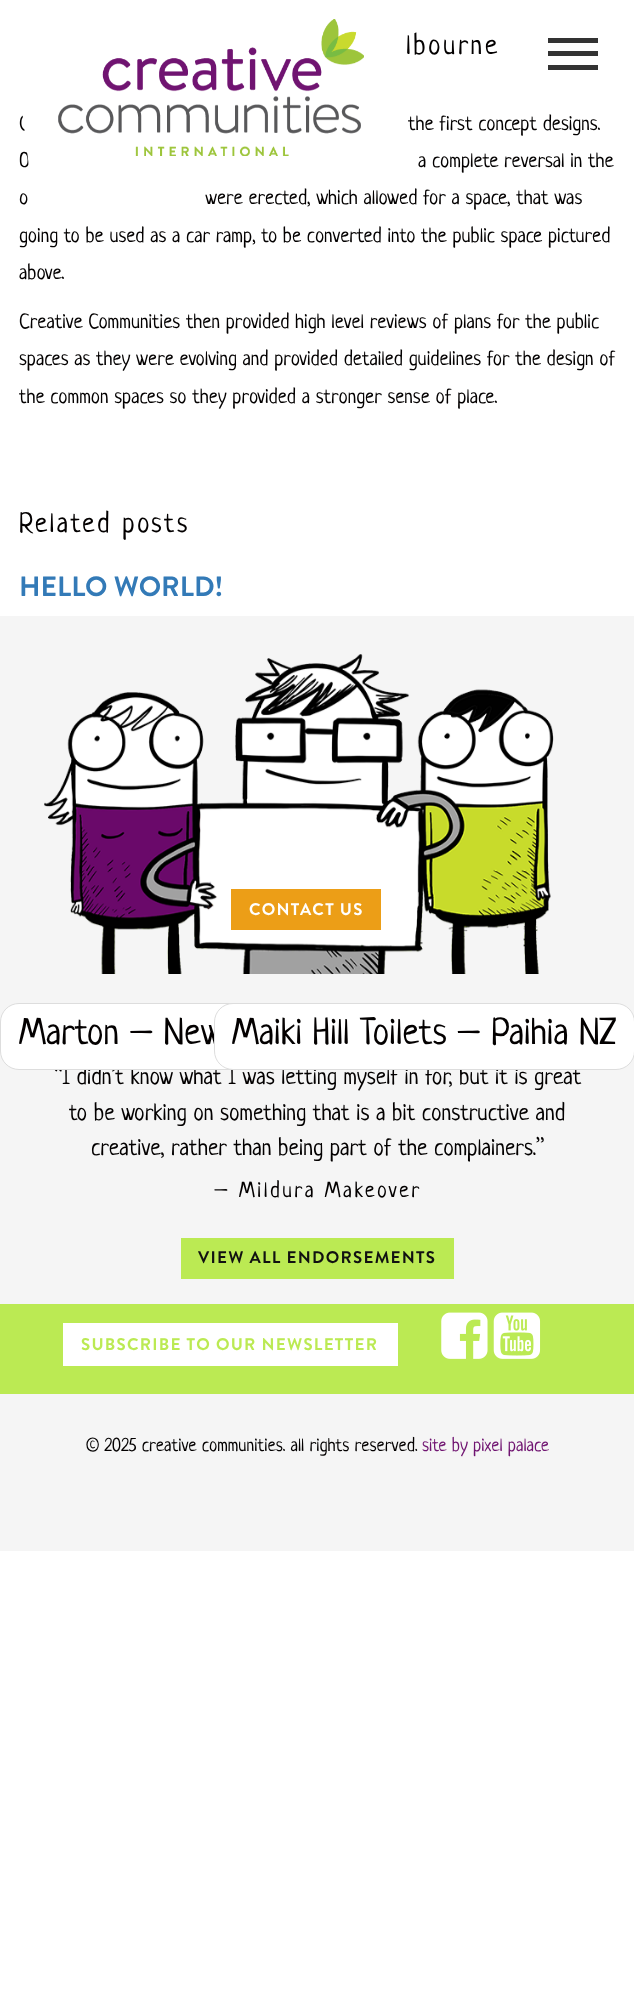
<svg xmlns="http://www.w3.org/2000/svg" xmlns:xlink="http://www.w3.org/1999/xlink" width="634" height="2003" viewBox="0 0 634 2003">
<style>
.cls-1{font:28px Neucha;letter-spacing:2.5px;fill:#030000}
.cls-2{font:20.6px Neucha;fill:#030000}
.cls-3{font:bold 28px Brandon Grotesque;fill:#337ab7}
.cls-4{font:bold 16.9px Brandon Grotesque;letter-spacing:1.25px;fill:#ffffff}
.cls-5{font:23.6px Neucha;fill:#030000}
.cls-6{font:37.5px Neucha;fill:#030000}
.cls-7{font:22px Neucha;letter-spacing:2.5px;fill:#030000}
.cls-8{font:bold 16.9px Brandon Grotesque;letter-spacing:1.25px;fill:#111111}
.cls-9{font:bold 16.9px Brandon Grotesque;letter-spacing:1.25px;fill:#bbea53}
.cls-10{font:18.6px Neucha;fill:#030000}
.cls-11{font:18.6px Neucha;fill:#701471}
</style>
<rect width="100%" height="100%" fill="#ffffff"/>
<rect fill="#333333" x="548" y="38" width="50" height="5"/>
<rect fill="#333333" x="548" y="51" width="50" height="5"/>
<rect fill="#333333" x="548" y="65" width="50" height="5"/>
<rect fill="#f5f5f5" x="0" y="616" width="634" height="935"/>
<image xlink:href="image1.png" x="44" y="654" width="510" height="320"/>
<rect fill="#ec9e17" x="231" y="889" width="150" height="41"/>
<rect fill="#bbea53" x="181" y="1238" width="273" height="41"/>
<rect fill="#bbea53" x="0" y="1304" width="634" height="90"/>
<rect fill="#ffffff" x="63" y="1323" width="335" height="43"/>
<image xlink:href="image2.png" x="441" y="1312" width="47" height="47"/>
<image xlink:href="image3.png" x="493" y="1312" width="48" height="47"/>
<text class="cls-1" x="406" y="54">lbourne</text>
<text class="cls-2" x="19" y="130">C</text>
<text class="cls-2" x="408" y="130">the first concept designs.</text>
<text class="cls-2" x="19" y="167">O</text>
<text class="cls-2" x="418" y="167">a complete reversal in the</text>
<text class="cls-2" x="19" y="204">o</text>
<text class="cls-2" x="205" y="204">were erected, which allowed for a space, that was</text>
<path fill="#ffffff" d="M6-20L384-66L413 169L35 216Z"/>
<image xlink:href="image0.png" x="58" y="19" width="306" height="137"/>
<text class="cls-2"><tspan x="19" y="242">going to be used as a car ramp, to be converted into the public space pictured</tspan><tspan x="19" y="279">above.</tspan></text>
<text class="cls-2"><tspan x="19" y="328">Creative Communities then provided high level reviews of plans for the public</tspan><tspan x="19" y="365">spaces as they were evolving and provided detailed guidelines for the design of</tspan><tspan x="19" y="403">the common spaces so they provided a stronger sense of place.</tspan></text>
<text class="cls-1" x="19" y="532">Related posts</text>
<text class="cls-3" x="19" y="596">HELLO WORLD!</text>
<text class="cls-4" x="249" y="915">CONTACT US</text>
<text class="cls-5" x="54" y="1084">“I didn’t know what I was letting myself in for, but it is great</text>
<rect fill="#ffffff" stroke="#dddddd" x="0.5" y="1003.5" width="350" height="66" rx="18.5"/>
<text class="cls-6" x="19" y="1044">Marton – New</text>
<rect fill="#ffffff" stroke="#dddddd" x="214.5" y="1003.5" width="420" height="66" rx="18.5"/>
<text class="cls-6" x="232" y="1044">Maiki Hill Toilets – Paihia NZ</text>
<text class="cls-5" x="69" y="1120">to be working on something that is a bit constructive and</text>
<text class="cls-5" x="91" y="1155">creative, rather than being part of the complainers.”</text>
<text class="cls-7" x="214" y="1197">– Mildura Makeover</text>
<text class="cls-8" x="198" y="1263">VIEW ALL ENDORSEMENTS</text>
<text class="cls-9" x="81" y="1350">SUBSCRIBE TO OUR NEWSLETTER</text>
<text class="cls-10" x="86" y="1451">© 2025 creative communities. all rights reserved.</text>
<text class="cls-11" x="422" y="1451">site by pixel palace</text>
</svg>
